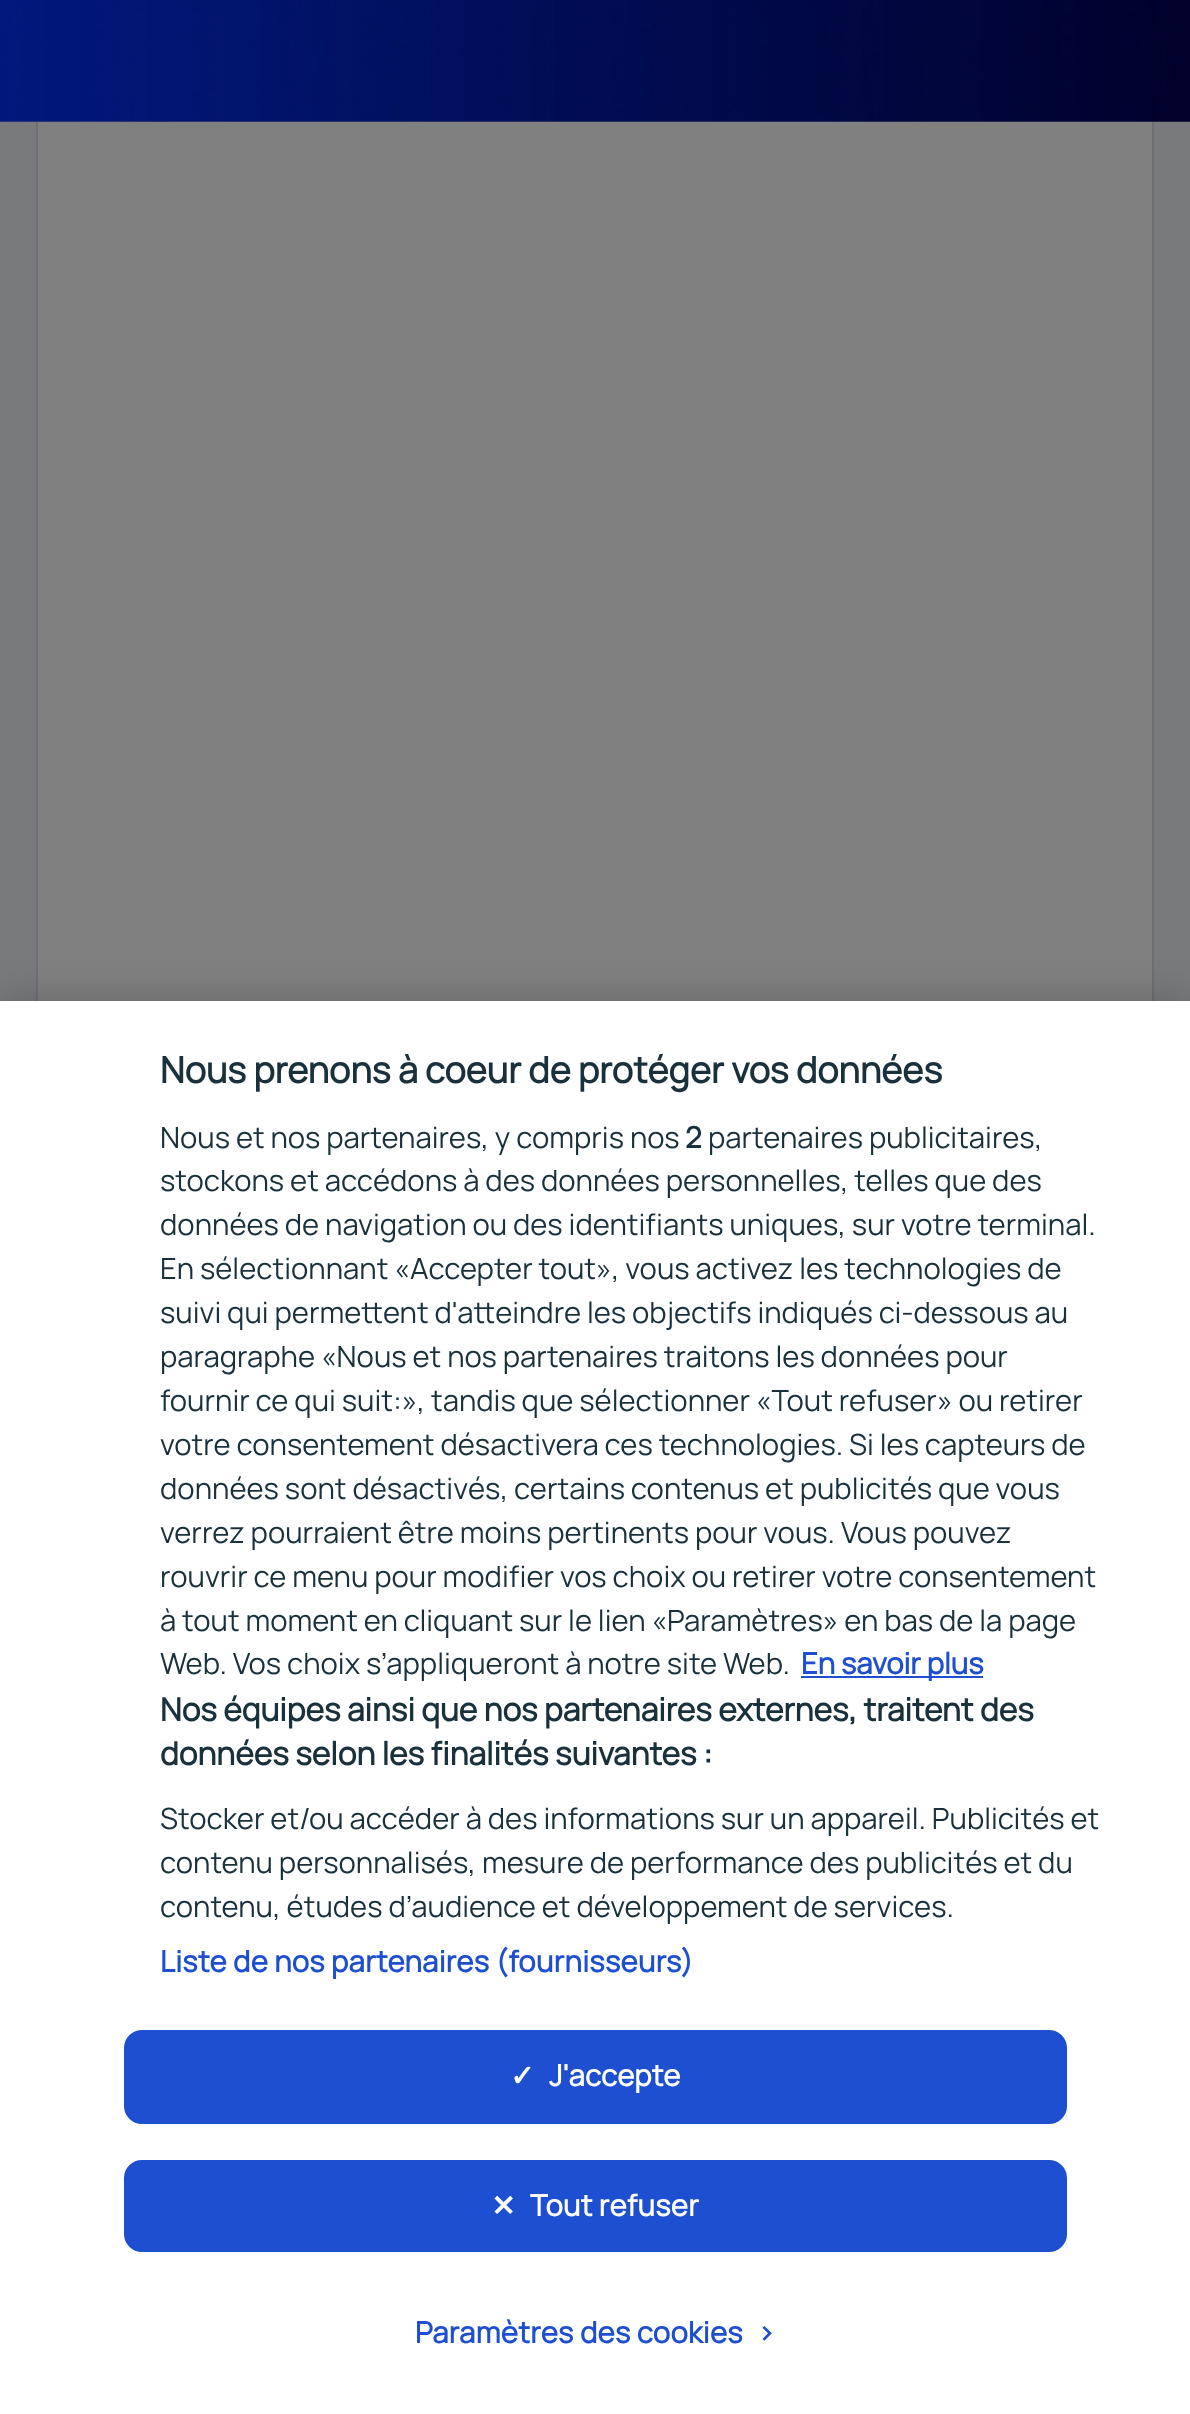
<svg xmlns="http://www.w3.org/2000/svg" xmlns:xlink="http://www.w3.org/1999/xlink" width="1190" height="2414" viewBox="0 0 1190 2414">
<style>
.cls-1{font:bold 36px Manrope;fill:#1a313c}
.cls-2{font:29.25px Manrope;fill:#1a313c}
.cls-3{font:bold 29.25px Manrope;fill:#1a313c}
.cls-4{font:bold 29.25px Manrope;fill:#1e4fd0}
.cls-5{font:bold 31.7px Manrope;fill:#1a313c}
.cls-6{font:bold 29.25px Manrope;letter-spacing:0.3px;fill:#1e4fd0}
.cls-7{font:bold 29.25px DejaVu Sans;letter-spacing:0.3px;fill:#ffffff}
.cls-8{font:bold 29.25px Manrope;letter-spacing:0.3px;fill:#ffffff}
</style>
<rect width="100%" height="100%" fill="#797a7c"/>
<rect fill="#808080" x="38" y="121" width="1114" height="880"/>
<rect fill="none" stroke="#6e6f75" stroke-width="2" x="37" y="-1" width="1116" height="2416"/>
<image xlink:href="image0.png" x="0" y="0" width="1190" height="122"/>
<rect fill="#000000" fill-opacity="0.2" filter="blur(20px)" x="0" y="1001" width="1190" height="1413"/>
<rect fill="#ffffff" x="0" y="1001" width="1190" height="1413"/>
<rect fill="#1e4fd0" x="801" y="1676" width="182" height="2"/>
<rect fill="#1e4fd0" stroke="#1e4fd0" stroke-width="2" x="125" y="2031" width="941" height="92" rx="17"/>
<rect fill="#1e4fd0" stroke="#1e4fd0" stroke-width="2" x="125" y="2161" width="941" height="90" rx="17"/>
<text class="cls-1" x="160" y="1083">Nous prenons à coeur de protéger vos données</text>
<text class="cls-2" x="160" y="1148">Nous et nos partenaires, y compris nos</text>
<text class="cls-3" x="685" y="1148">2</text>
<text class="cls-2" x="708" y="1148">partenaires publicitaires,</text>
<text class="cls-2"><tspan x="160" y="1191">stockons et accédons à des données personnelles, telles que des</tspan><tspan x="160" y="1235">données de navigation ou des identifiants uniques, sur votre terminal.</tspan><tspan x="160" y="1279">En sélectionnant «Accepter tout», vous activez les technologies de</tspan><tspan x="160" y="1323">suivi qui permettent d'atteindre les objectifs indiqués ci-dessous au</tspan><tspan x="160" y="1367">paragraphe «Nous et nos partenaires traitons les données pour</tspan><tspan x="160" y="1411">fournir ce qui suit:», tandis que sélectionner «Tout refuser» ou retirer</tspan><tspan x="160" y="1455">votre consentement désactivera ces technologies. Si les capteurs de</tspan><tspan x="160" y="1499">données sont désactivés, certains contenus et publicités que vous</tspan><tspan x="160" y="1543">verrez pourraient être moins pertinents pour vous. Vous pouvez</tspan><tspan x="160" y="1587">rouvrir ce menu pour modifier vos choix ou retirer votre consentement</tspan><tspan x="160" y="1631">à tout moment en cliquant sur le lien «Paramètres» en bas de la page</tspan><tspan x="160" y="1674">Web. Vos choix s’appliqueront à notre site Web.</tspan></text>
<text class="cls-4" x="801" y="1674">En savoir plus</text>
<text class="cls-5"><tspan x="160" y="1721">Nos équipes ainsi que nos partenaires externes, traitent des</tspan><tspan x="160" y="1765">données selon les finalités suivantes :</tspan></text>
<text class="cls-2"><tspan x="160" y="1829">Stocker et/ou accéder à des informations sur un appareil. Publicités et</tspan><tspan x="160" y="1873">contenu personnalisés, mesure de performance des publicités et du</tspan><tspan x="160" y="1917">contenu, études d’audience et développement de services.</tspan></text>
<text class="cls-6" x="160" y="1972">Liste de nos partenaires (fournisseurs)</text>
<text class="cls-7" x="510" y="2086">✓</text>
<text class="cls-8" x="549" y="2086">J'accepte</text>
<text class="cls-7" x="491" y="2216">✕</text>
<text class="cls-8" x="530" y="2216">Tout refuser</text>
<text class="cls-6" x="415" y="2343">Paramètres des cookies</text>
<text class="cls-6" x="757" y="2343">&gt;</text>
</svg>
